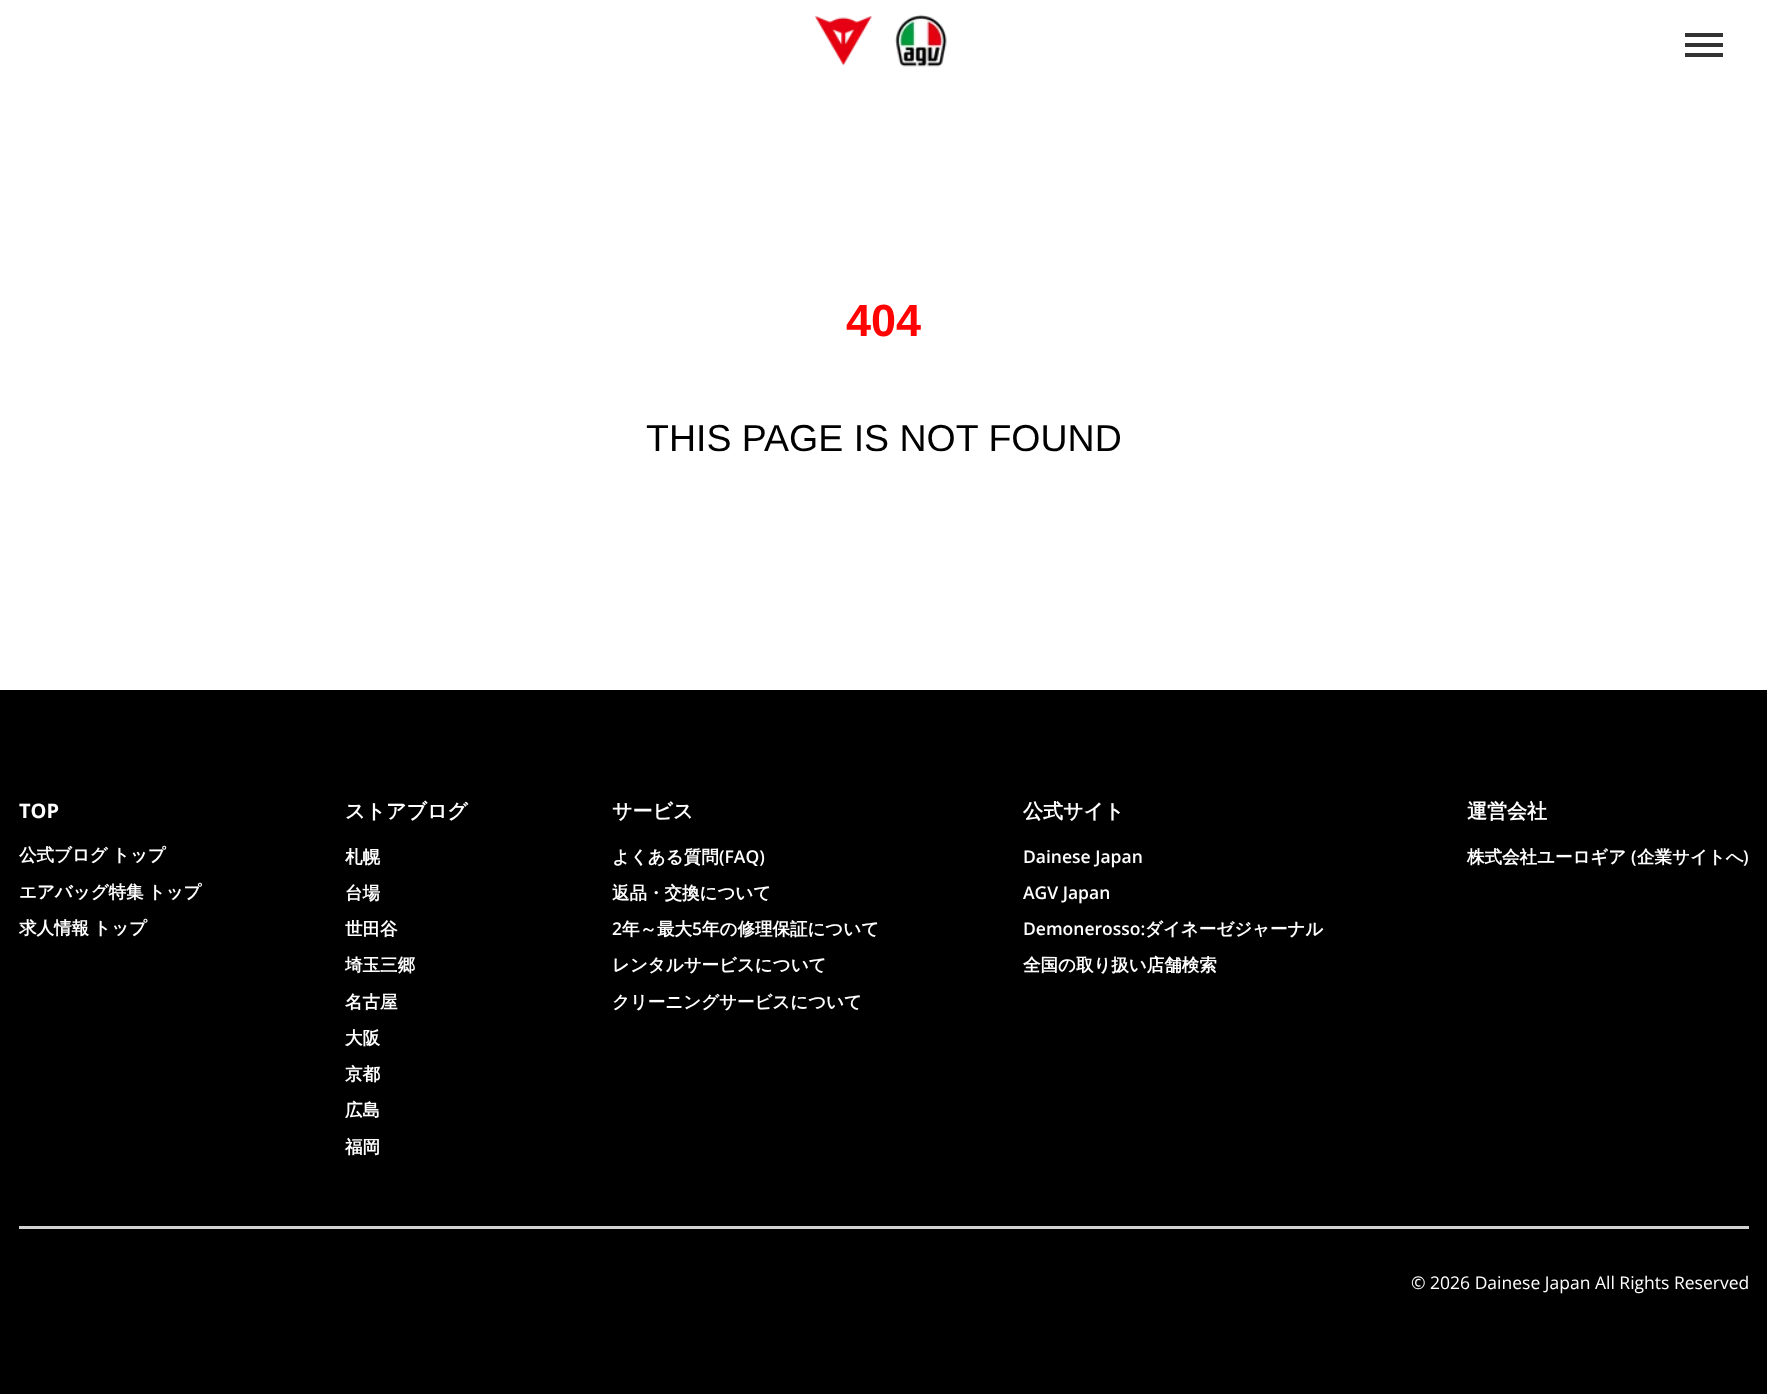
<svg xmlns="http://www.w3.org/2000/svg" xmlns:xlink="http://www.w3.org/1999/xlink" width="1767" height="1394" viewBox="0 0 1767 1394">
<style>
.cls-1{font:bold 45px Liberation Sans;fill:#ff0201}
.cls-2{font:37.5px Liberation Sans;fill:#000000}
.cls-3{font:bold 20px Open Sans;fill:#ffffff}
.cls-4{font:bold 17.5px WenQuanYi Zen Hei;fill:#ffffff}
.cls-5{font:bold 20px WenQuanYi Zen Hei;fill:#ffffff}
.cls-6{font:600 17.5px Open Sans;fill:#ffffff}
.cls-7{font:17.5px Open Sans;fill:#ffffff}
</style>
<rect width="100%" height="100%" fill="#ffffff"/>
<image xlink:href="image0.png" x="815" y="14" width="132" height="53"/>
<rect fill="#333333" x="1685" y="33" width="38" height="4"/>
<rect fill="#333333" x="1685" y="43" width="38" height="4"/>
<rect fill="#333333" x="1685" y="53" width="38" height="4"/>
<rect fill="#000000" x="0" y="690" width="1767" height="704"/>
<rect fill="#d2d2d2" x="19" y="1226" width="1730" height="3"/>
<text class="cls-1" x="846" y="336">404</text>
<text class="cls-2" x="646" y="451">THIS PAGE IS NOT FOUND</text>
<text class="cls-3" x="19" y="818">TOP</text>
<text class="cls-4" x="19" y="861" word-spacing="-1">公式ブログ トップ</text>
<text class="cls-4" x="19" y="898" word-spacing="-1">エアバッグ特集 トップ</text>
<text class="cls-4" x="19" y="934" word-spacing="-1">求人情報 トップ</text>
<text class="cls-5" x="345" y="818">ストアブログ</text>
<text class="cls-4" x="345" y="863">札幌</text>
<text class="cls-4" x="345" y="899">台場</text>
<text class="cls-4" x="345" y="935">世田谷</text>
<text class="cls-4" x="345" y="971">埼玉三郷</text>
<text class="cls-4" x="345" y="1008">名古屋</text>
<text class="cls-4" x="345" y="1044">大阪</text>
<text class="cls-4" x="345" y="1080">京都</text>
<text class="cls-4" x="345" y="1116">広島</text>
<text class="cls-4" x="345" y="1153">福岡</text>
<text class="cls-5" x="612" y="818">サービス</text>
<text class="cls-4" x="612" y="863">よくある質問</text>
<text class="cls-6" x="719" y="863">(FAQ)</text>
<text class="cls-4" x="612" y="899">返品・交換について</text>
<text class="cls-6" x="612" y="935">2</text>
<text class="cls-4" x="622" y="935">年～最大</text>
<text class="cls-6" x="692" y="935">5</text>
<text class="cls-4" x="702" y="935">年の修理保証について</text>
<text class="cls-4" x="612" y="971">レンタルサービスについて</text>
<text class="cls-4" x="612" y="1008">クリーニングサービスについて</text>
<text class="cls-5" x="1023" y="818">公式サイト</text>
<text class="cls-6" x="1023" y="863">Dainese Japan</text>
<text class="cls-6" x="1023" y="899">AGV Japan</text>
<text class="cls-6" x="1023" y="935">Demonerosso:</text>
<text class="cls-4" x="1145" y="935">ダイネーゼジャーナル</text>
<text class="cls-4" x="1023" y="971">全国の取り扱い店舗検索</text>
<text class="cls-5" x="1467" y="818">運営会社</text>
<text class="cls-4" x="1467" y="863">株式会社ユーロギア</text>
<text class="cls-6" x="1631" y="863">(</text>
<text class="cls-4" x="1637" y="863">企業サイトへ</text>
<text class="cls-6" x="1743" y="863">)</text>
<text class="cls-7" x="1411" y="1289">© 2026 Dainese Japan All Rights Reserved</text>
</svg>
